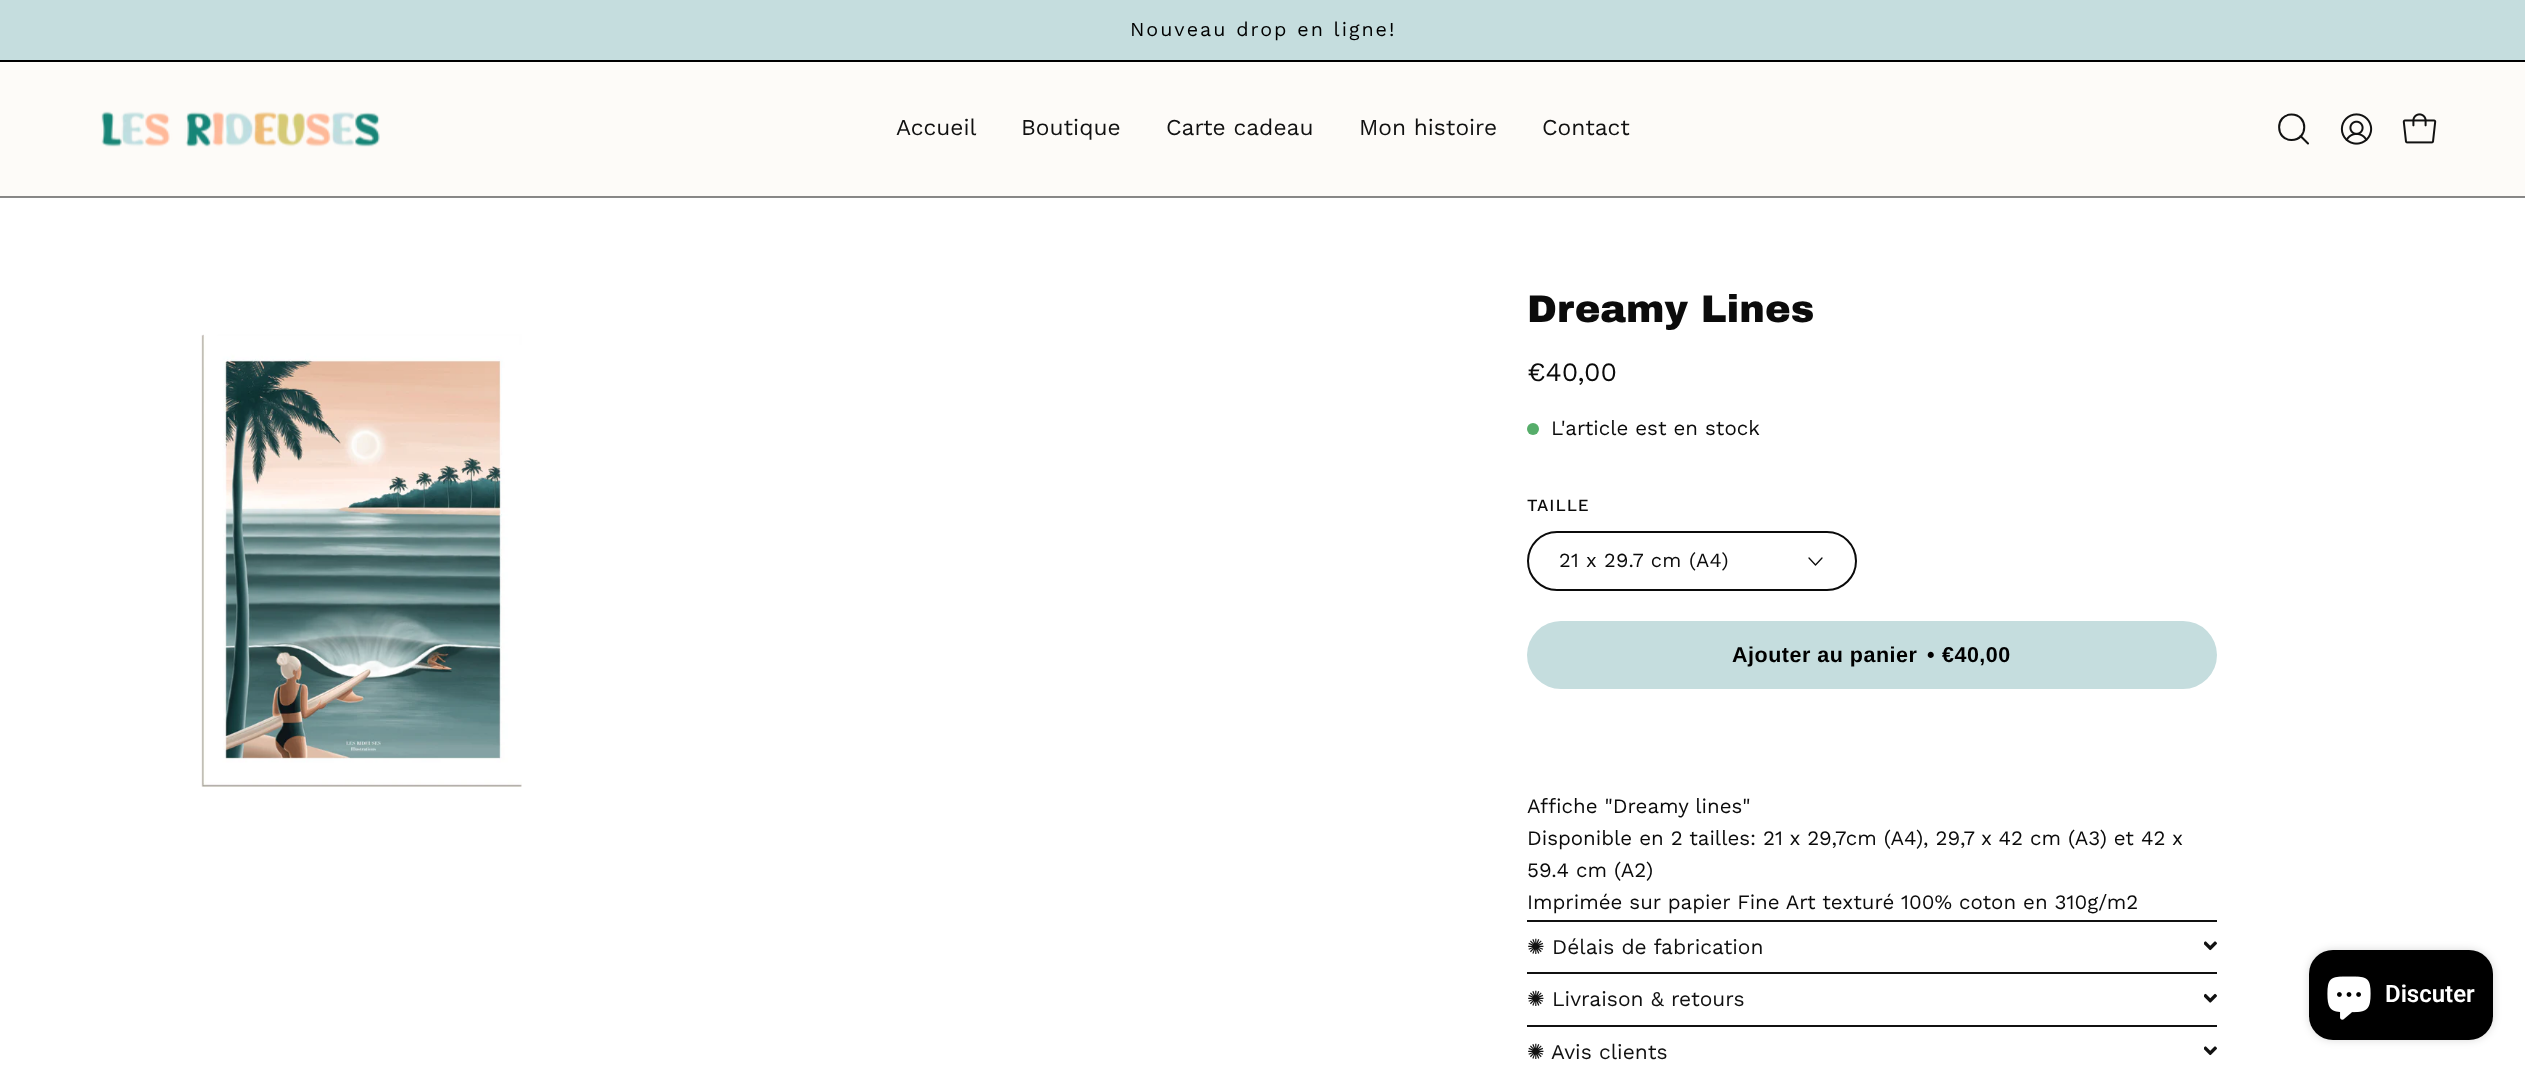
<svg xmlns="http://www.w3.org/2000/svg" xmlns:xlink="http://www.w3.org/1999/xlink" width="2525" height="1070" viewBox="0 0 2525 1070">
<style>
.cls-1{font:19.75px Work Sans;letter-spacing:2px;fill:#000000}
.cls-2{font:22.75px Work Sans;fill:#111111}
.cls-3{font:38.5px Archivo Black;fill:#0b0b0b}
.cls-4{font:26.5px Work Sans;fill:#0b0b0b}
.cls-5{font:20.5px Work Sans;fill:#0b0b0b}
.cls-6{font:500 17px Work Sans;letter-spacing:1px;fill:#0b0b0b}
.cls-7{font:20px Work Sans;letter-spacing:0.4px;fill:#0b0b0b}
.cls-8{font:bold 21.5px Liberation Sans;letter-spacing:0.5px;fill:#000000}
.cls-9{font:21px DejaVu Sans;fill:#111111}
.cls-10{font:21px Work Sans;fill:#111111}
.cls-11{font:600 24px Roboto;fill:#ffffff}
</style>
<rect width="100%" height="100%" fill="#ffffff"/>
<rect fill="#888888" x="0" y="197" width="2525" height="1"/>
<rect fill="#c5ddde" x="0" y="0" width="2525" height="60"/>
<rect fill="#000000" x="0" y="60" width="2525" height="2"/>
<rect fill="#fdfbf8" x="0" y="62" width="2525" height="134"/>
<rect fill="#878685" x="0" y="196" width="2525" height="1"/>
<image xlink:href="image0.png" x="101" y="111" width="279" height="36"/>
<path fill="none" stroke="#111111" stroke-width="2" stroke-linecap="round" stroke-linejoin="round" d="M2291.5 140C2308.5 140 2308.5 114.5 2291.5 114.5C2275 114.5 2275 140 2291.5 140ZM2300.5 136L2308 143.5"/>
<image xlink:href="image1.png" x="2340" y="113" width="33" height="32"/>
<image xlink:href="image2.png" x="2402" y="113" width="35" height="31"/>
<image xlink:href="image3.png" x="201" y="334" width="321" height="453"/>
<circle fill="#56ad6a" cx="1533" cy="429" r="6"/>
<rect fill="none" stroke="#0b0b0b" stroke-width="2" x="1528" y="532" width="328" height="58" rx="29"/>
<path fill="none" stroke="#0b0b0b" stroke-width="1.3" stroke-linecap="round" stroke-linejoin="round" d="M1822 558L1815.5 565L1809 558"/>
<rect fill="#c5ddde" x="1527" y="621" width="690" height="68" rx="34"/>
<rect fill="#111111" x="1527" y="920" width="690" height="2"/>
<image xlink:href="image4.png" x="2204" y="941" width="13" height="10"/>
<rect fill="#111111" x="1527" y="972" width="690" height="2"/>
<image xlink:href="image5.png" x="2204" y="993" width="13" height="10"/>
<rect fill="#111111" x="1527" y="1025" width="690" height="2"/>
<image xlink:href="image4.png" x="2204" y="1046" width="13" height="10"/>
<rect fill="#000000" fill-opacity="0.15" filter="blur(4px)" x="2309" y="950" width="184" height="90" rx="24"/>
<rect fill="#000000" x="2309" y="950" width="184" height="90" rx="24"/>
<image xlink:href="image6.png" x="2327" y="976" width="44" height="44"/>
<text class="cls-1" x="1130" y="36">Nouveau drop en ligne!</text>
<text class="cls-2" x="896" y="135">Accueil</text>
<text class="cls-2" x="1021" y="135">Boutique</text>
<text class="cls-2" x="1166" y="135">Carte cadeau</text>
<text class="cls-2" x="1359" y="135">Mon histoire</text>
<text class="cls-2" x="1542" y="135">Contact</text>
<text class="cls-3" x="1527" y="322">Dreamy Lines</text>
<text class="cls-4" x="1527" y="381">€40,00</text>
<text class="cls-5" x="1551" y="435">L'article est en stock</text>
<text class="cls-6" x="1527" y="511">TAILLE</text>
<text class="cls-7" x="1559" y="567">21 x 29.7 cm (A4)</text>
<text class="cls-8" x="1732" y="662">Ajouter au panier</text>
<text class="cls-8" x="1927" y="662">•</text>
<text class="cls-8" x="1942" y="662">€40,00</text>
<text class="cls-5"><tspan x="1527" y="813">Affiche "Dreamy lines"</tspan><tspan x="1527" y="845">Disponible en 2 tailles: 21 x 29,7cm (A4), 29,7 x 42 cm (A3) et 42 x</tspan><tspan x="1527" y="877">59.4 cm (A2)</tspan><tspan x="1527" y="909">Imprimée sur papier Fine Art texturé 100% coton en 310g/m2</tspan></text>
<text class="cls-9" x="1527" y="954">✺</text>
<text class="cls-10" x="1552" y="954">Délais de fabrication</text>
<text class="cls-9" x="1527" y="1006">✺</text>
<text class="cls-10" x="1552" y="1006">Livraison &amp; retours</text>
<text class="cls-9" x="1527" y="1059">✺</text>
<text class="cls-10" x="1551" y="1059">Avis clients</text>
<text class="cls-11" x="2385" y="1002">Discuter</text>
</svg>
